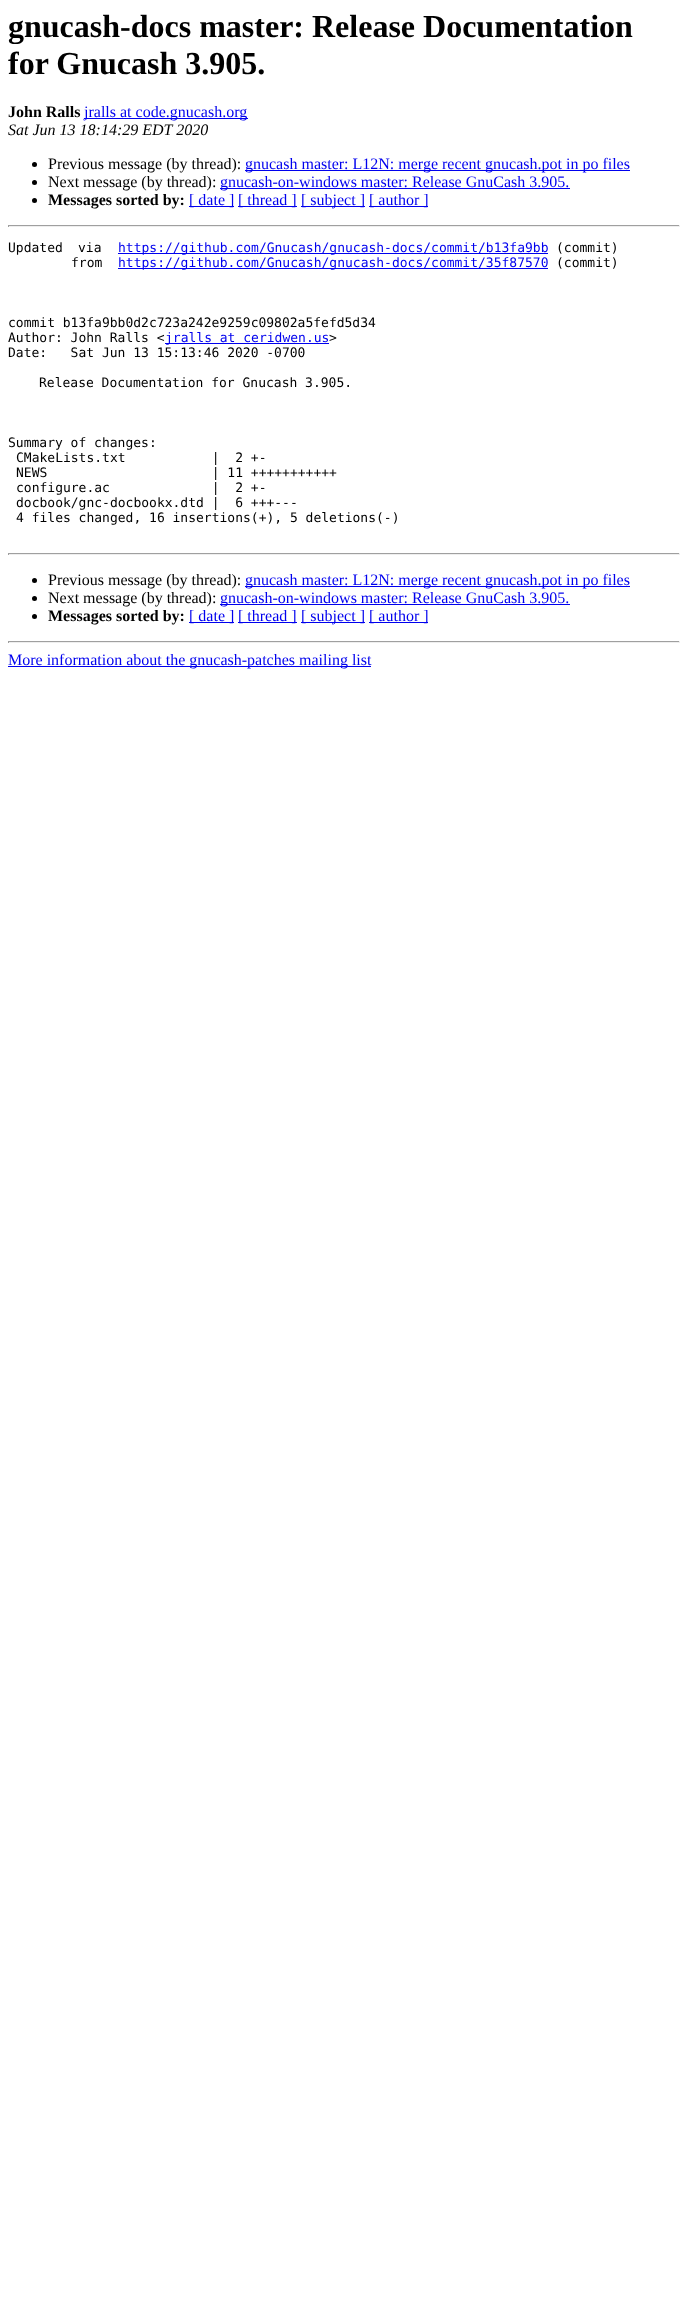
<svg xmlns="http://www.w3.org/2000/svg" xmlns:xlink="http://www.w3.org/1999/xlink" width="688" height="2303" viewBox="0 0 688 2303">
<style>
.cls-1{font:bold 32px Liberation Serif;fill:#000000}
.cls-2{font:bold 16px Liberation Serif;fill:#000000}
.cls-3{font:16px Liberation Serif;fill:#0000ee}
.cls-4{font:italic 16px Liberation Serif;fill:#000000}
.cls-5{font:16px Liberation Serif;fill:#000000}
.cls-6{font:13px DejaVu Sans Mono;fill:#000000}
.cls-7{font:13px DejaVu Sans Mono;fill:#0000ee}
</style>
<rect width="100%" height="100%" fill="#ffffff"/>
<rect fill="#0000ee" x="84" y="118" width="164" height="1"/>
<circle fill="#000000" cx="34.5" cy="164.5" r="2.5"/>
<rect fill="#0000ee" x="245" y="170" width="385" height="1"/>
<circle fill="#000000" cx="34.5" cy="182.5" r="2.5"/>
<rect fill="#0000ee" x="220" y="188" width="350" height="1"/>
<circle fill="#000000" cx="34.5" cy="200.5" r="2.5"/>
<rect fill="#0000ee" x="189" y="206" width="45" height="1"/>
<rect fill="#0000ee" x="238" y="206" width="59" height="1"/>
<rect fill="#0000ee" x="301" y="206" width="64" height="1"/>
<rect fill="#0000ee" x="369" y="206" width="59" height="1"/>
<rect fill="#9f9f9f" x="8" y="225" width="672" height="1"/>
<rect fill="#eeeeee" x="679" y="225" width="1" height="2"/>
<rect fill="#eeeeee" x="8" y="226" width="672" height="1"/>
<rect fill="#9f9f9f" x="8" y="225" width="1" height="2"/>
<rect fill="#0000ee" x="118" y="253" width="430" height="1"/>
<rect fill="#0000ee" x="118" y="268" width="430" height="1"/>
<rect fill="#0000ee" x="165" y="343" width="164" height="1"/>
<rect fill="#9f9f9f" x="8" y="553" width="672" height="1"/>
<rect fill="#eeeeee" x="679" y="553" width="1" height="2"/>
<rect fill="#eeeeee" x="8" y="554" width="672" height="1"/>
<rect fill="#9f9f9f" x="8" y="553" width="1" height="2"/>
<circle fill="#000000" cx="34.5" cy="580.5" r="2.5"/>
<rect fill="#0000ee" x="245" y="586" width="385" height="1"/>
<circle fill="#000000" cx="34.5" cy="598.5" r="2.5"/>
<rect fill="#0000ee" x="220" y="604" width="350" height="1"/>
<circle fill="#000000" cx="34.5" cy="616.5" r="2.5"/>
<rect fill="#0000ee" x="189" y="622" width="45" height="1"/>
<rect fill="#0000ee" x="238" y="622" width="59" height="1"/>
<rect fill="#0000ee" x="301" y="622" width="64" height="1"/>
<rect fill="#0000ee" x="369" y="622" width="59" height="1"/>
<rect fill="#9f9f9f" x="8" y="641" width="672" height="1"/>
<rect fill="#eeeeee" x="679" y="641" width="1" height="2"/>
<rect fill="#eeeeee" x="8" y="642" width="672" height="1"/>
<rect fill="#9f9f9f" x="8" y="641" width="1" height="2"/>
<rect fill="#0000ee" x="8" y="666" width="363" height="1"/>
<text class="cls-1"><tspan x="8" y="37">gnucash-docs master: Release Documentation</tspan><tspan x="8" y="74">for Gnucash 3.905.</tspan></text>
<text class="cls-2" x="8" y="117">John Ralls</text>
<text class="cls-3" x="84" y="117">jralls at code.gnucash.org</text>
<text class="cls-4" x="8" y="135">Sat Jun 13 18:14:29 EDT 2020</text>
<text class="cls-5" x="48" y="169">Previous message (by thread):</text>
<text class="cls-3" x="245" y="169">gnucash master: L12N: merge recent gnucash.pot in po files</text>
<text class="cls-5" x="48" y="187">Next message (by thread):</text>
<text class="cls-3" x="220" y="187">gnucash-on-windows master: Release GnuCash 3.905.</text>
<text class="cls-2" x="48" y="205">Messages sorted by:</text>
<text class="cls-3" x="189" y="205">[ date ]</text>
<text class="cls-3" x="238" y="205">[ thread ]</text>
<text class="cls-3" x="301" y="205">[ subject ]</text>
<text class="cls-3" x="369" y="205">[ author ]</text>
<text class="cls-6" x="8" y="252">Updated</text>
<text class="cls-6" x="78" y="252">via</text>
<text class="cls-7" x="118" y="252">https://github.com/Gnucash/gnucash-docs/commit/b13fa9bb</text>
<text class="cls-6" x="556" y="252">(commit)</text>
<text class="cls-6" x="71" y="267">from</text>
<text class="cls-7" x="118" y="267">https://github.com/Gnucash/gnucash-docs/commit/35f87570</text>
<text class="cls-6" x="556" y="267">(commit)</text>
<text class="cls-6"><tspan x="8" y="327">commit b13fa9bb0d2c723a242e9259c09802a5fefd5d34</tspan><tspan x="8" y="342">Author: John Ralls &lt;</tspan></text>
<text class="cls-7" x="165" y="342">jralls at ceridwen.us</text>
<text class="cls-6" x="329" y="342">&gt;</text>
<text class="cls-6" xml:space="preserve" x="8" y="357">Date:   Sat Jun 13 15:13:46 2020 -0700</text>
<text class="cls-6" x="39" y="387">Release Documentation for Gnucash 3.905.</text>
<text class="cls-6" x="8" y="447">Summary of changes:</text>
<text class="cls-6" xml:space="preserve"><tspan x="16" y="462">CMakeLists.txt           |  2 +-</tspan><tspan x="16" y="477">NEWS                     | 11 +++++++++++</tspan><tspan x="16" y="492">configure.ac             |  2 +-</tspan><tspan x="16" y="507">docbook/gnc-docbookx.dtd |  6 +++---</tspan><tspan x="16" y="522">4 files changed, 16 insertions(+), 5 deletions(-)</tspan></text>
<text class="cls-5" x="48" y="585">Previous message (by thread):</text>
<text class="cls-3" x="245" y="585">gnucash master: L12N: merge recent gnucash.pot in po files</text>
<text class="cls-5" x="48" y="603">Next message (by thread):</text>
<text class="cls-3" x="220" y="603">gnucash-on-windows master: Release GnuCash 3.905.</text>
<text class="cls-2" x="48" y="621">Messages sorted by:</text>
<text class="cls-3" x="189" y="621">[ date ]</text>
<text class="cls-3" x="238" y="621">[ thread ]</text>
<text class="cls-3" x="301" y="621">[ subject ]</text>
<text class="cls-3" x="369" y="621">[ author ]</text>
<text class="cls-3" x="8" y="665">More information about the gnucash-patches mailing list</text>
</svg>
